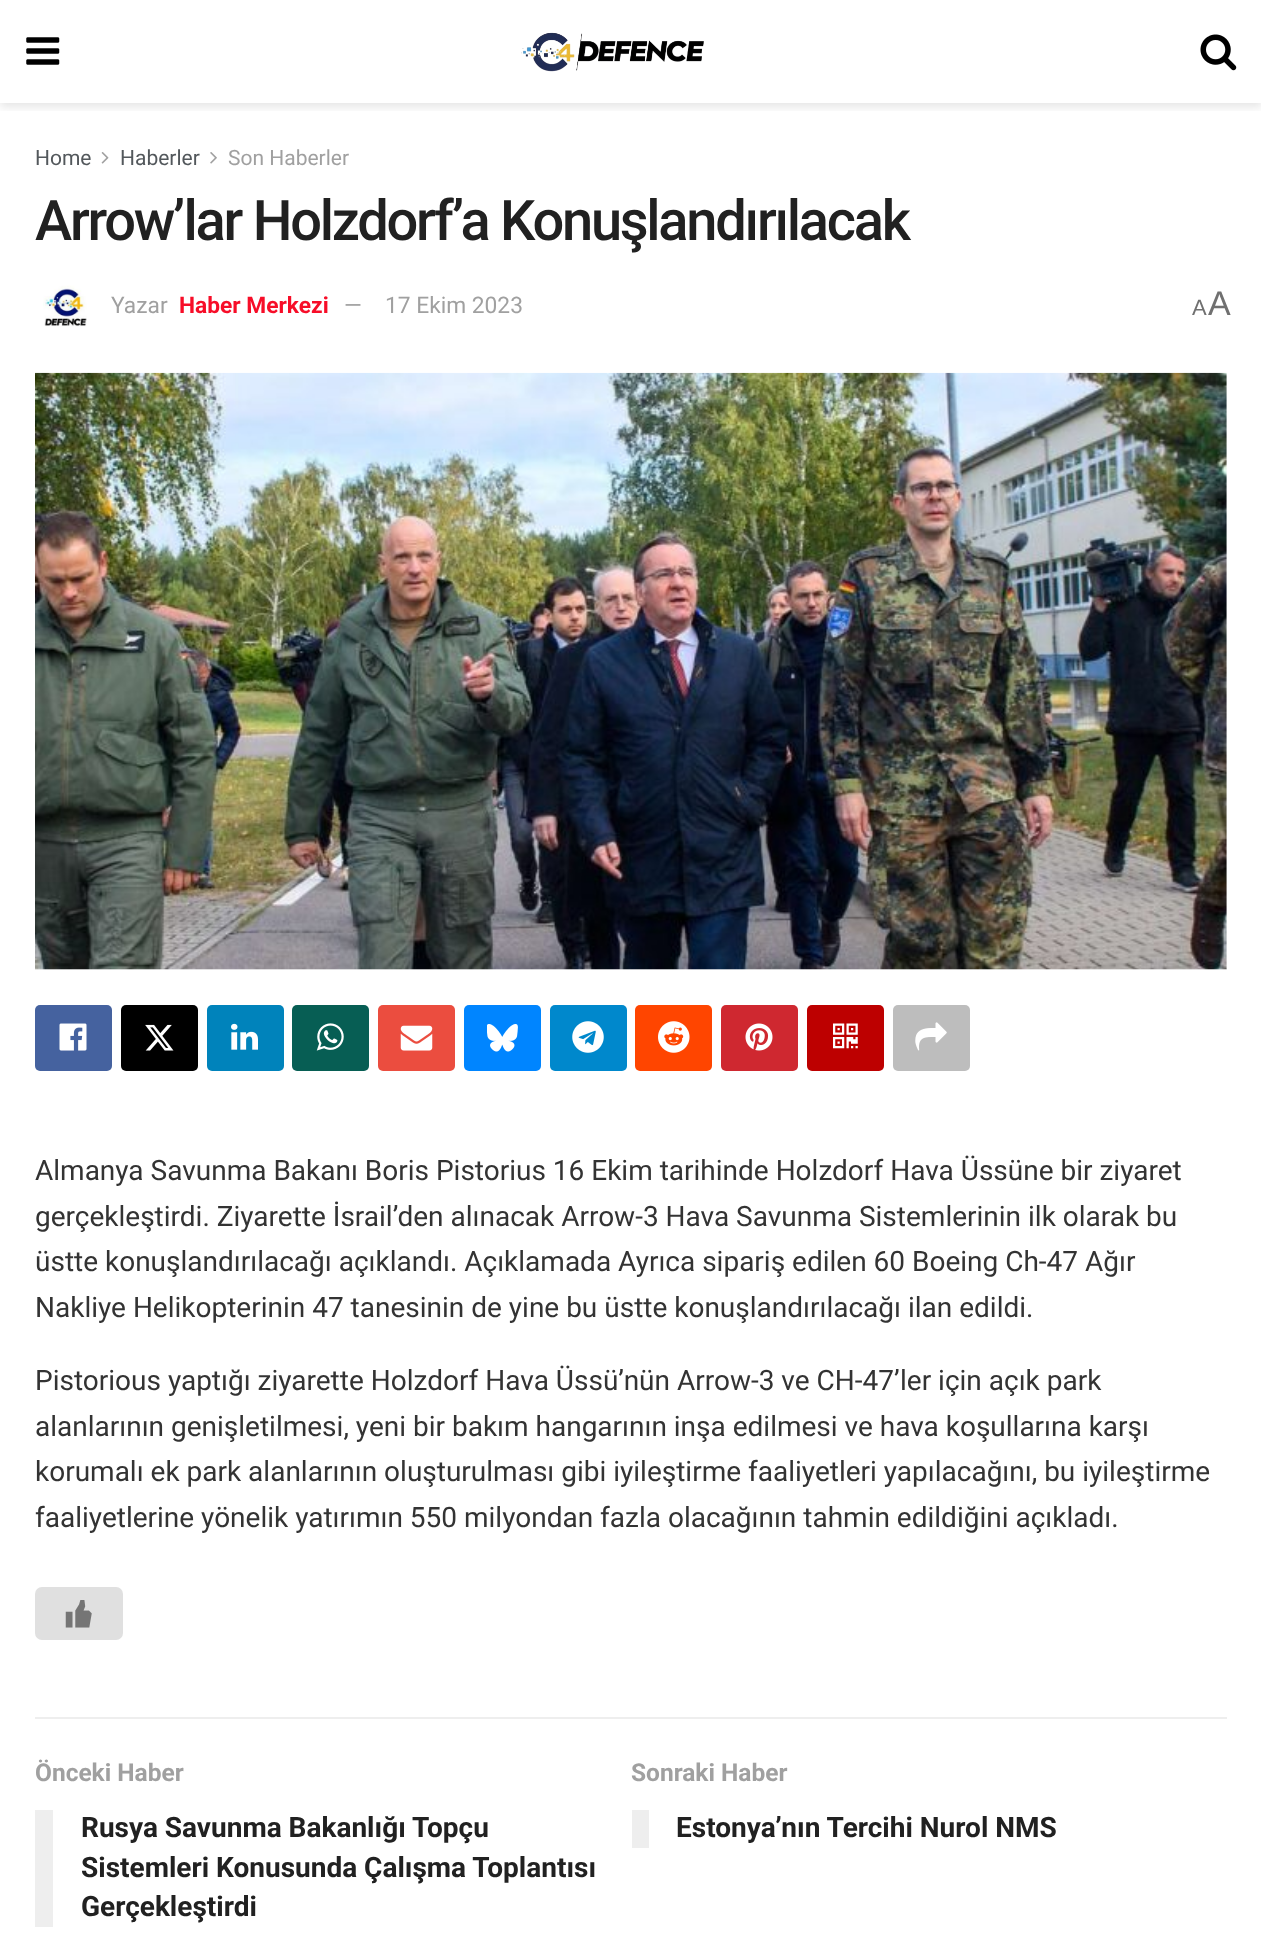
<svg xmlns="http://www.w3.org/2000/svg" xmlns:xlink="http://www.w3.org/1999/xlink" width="1261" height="1946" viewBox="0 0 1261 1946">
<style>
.cls-1{font:21px Roboto;fill:#53585c}
.cls-2{font:21px Roboto;fill:#a0a0a0}
.cls-3{font:500 56px Roboto;letter-spacing:-2.25px;fill:#212121}
.cls-4{font:22.75px Roboto;fill:#a0a0a0}
.cls-5{font:bold 22.75px Roboto;fill:#f70d28}
.cls-6{font:22px Liberation Sans;fill:#707070}
.cls-7{font:34px Liberation Sans;fill:#707070}
.cls-8{font:28px Roboto;fill:#333333}
.cls-9{font:bold 24.5px Roboto;fill:#a0a0a0}
.cls-10{font:bold 28px Roboto;fill:#212121}
</style>
<defs>
<clipPath id="clip1"><rect x="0" y="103" width="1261" height="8"/></clipPath>
</defs>
<rect width="100%" height="100%" fill="#ffffff"/>
<g clip-path="url(#clip1)">
<rect fill="#000000" fill-opacity="0.1" filter="blur(5px)" x="0" y="4" width="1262" height="103"/>
</g>
<image xlink:href="image0.png" x="26" y="37" width="34" height="28"/>
<image xlink:href="image1.png" x="521" y="32" width="183" height="40"/>
<image xlink:href="image2.png" x="1200" y="34" width="37" height="37"/>
<image xlink:href="image3.png" x="101" y="152" width="8" height="12"/>
<image xlink:href="image4.png" x="210" y="152" width="7" height="12"/>
<image xlink:href="image5.png" x="43" y="285" width="44" height="42"/>
<rect fill="#f7f7f7" x="35" y="373" width="1192" height="597"/>
<image xlink:href="image6.png" x="35" y="372" width="1192" height="598"/>
<rect fill="#45629f" x="35" y="1005" width="77" height="66" rx="5"/>
<image xlink:href="image7.png" x="59" y="1023" width="28" height="28"/>
<rect fill="#000000" x="121" y="1005" width="77" height="66" rx="5"/>
<image xlink:href="image8.png" x="145" y="1024" width="29" height="27"/>
<rect fill="#0083bb" x="207" y="1005" width="77" height="66" rx="5"/>
<image xlink:href="image9.png" x="231" y="1023" width="27" height="27"/>
<rect fill="#075e54" x="292" y="1005" width="77" height="66" rx="5"/>
<image xlink:href="image10.png" x="316" y="1023" width="28" height="28"/>
<rect fill="#eb4d3f" x="378" y="1005" width="77" height="66" rx="5"/>
<image xlink:href="image11.png" x="400" y="1025" width="33" height="26"/>
<rect fill="#0085ff" x="464" y="1005" width="77" height="66" rx="5"/>
<image xlink:href="image12.png" x="487" y="1024" width="31" height="28"/>
<rect fill="#0088cc" x="550" y="1005" width="77" height="66" rx="5"/>
<image xlink:href="image13.png" x="572" y="1021" width="32" height="32"/>
<rect fill="#ff4500" x="635" y="1005" width="77" height="66" rx="5"/>
<image xlink:href="image14.png" x="658" y="1021" width="32" height="32"/>
<rect fill="#cf2830" x="721" y="1005" width="77" height="66" rx="5"/>
<image xlink:href="image15.png" x="745" y="1023" width="28" height="28"/>
<rect fill="#bd0000" x="807" y="1005" width="77" height="66" rx="5"/>
<image xlink:href="image16.png" x="833" y="1023" width="25" height="26"/>
<rect fill="#bdbdbd" x="893" y="1005" width="77" height="66" rx="5"/>
<image xlink:href="image17.png" x="915" y="1022" width="32" height="29"/>
<rect fill="#e0e0e0" x="35" y="1587" width="88" height="53" rx="7"/>
<image xlink:href="image18.png" x="65" y="1600" width="27" height="28"/>
<rect fill="#eeeeee" x="35" y="1717" width="1192" height="2"/>
<rect fill="#eeeeee" x="35" y="1810" width="18" height="117"/>
<rect fill="#eeeeee" x="632" y="1810" width="17" height="38"/>
<text class="cls-1" x="35" y="165">Home</text>
<text class="cls-1" x="120" y="165">Haberler</text>
<text class="cls-2" x="228" y="165">Son Haberler</text>
<text class="cls-3" x="35" y="240">Arrow’lar Holzdorf’a Konuşlandırılacak</text>
<text class="cls-4" x="111" y="313">Yazar </text>
<text class="cls-5" x="179" y="313">Haber Merkezi</text>
<text class="cls-4" x="344" y="313">—</text>
<text class="cls-4" x="385" y="313">17 Ekim 2023</text>
<text class="cls-6" x="1192" y="315">A</text>
<text class="cls-7" x="1208" y="315">A</text>
<text class="cls-8"><tspan x="35" y="1180">Almanya Savunma Bakanı Boris Pistorius 16 Ekim tarihinde Holzdorf Hava Üssüne bir ziyaret</tspan><tspan x="35" y="1226">gerçekleştirdi. Ziyarette İsrail’den alınacak Arrow-3 Hava Savunma Sistemlerinin ilk olarak bu</tspan><tspan x="35" y="1271">üstte konuşlandırılacağı açıklandı. Açıklamada Ayrıca sipariş edilen 60 Boeing Ch-47 Ağır</tspan><tspan x="35" y="1317">Nakliye Helikopterinin 47 tanesinin de yine bu üstte konuşlandırılacağı ilan edildi.</tspan></text>
<text class="cls-8"><tspan x="35" y="1390">Pistorious yaptığı ziyarette Holzdorf Hava Üssü’nün Arrow-3 ve CH-47’ler için açık park</tspan><tspan x="35" y="1436">alanlarının genişletilmesi, yeni bir bakım hangarının inşa edilmesi ve hava koşullarına karşı</tspan><tspan x="35" y="1481">korumalı ek park alanlarının oluşturulması gibi iyileştirme faaliyetleri yapılacağını, bu iyileştirme</tspan><tspan x="35" y="1527">faaliyetlerine yönelik yatırımın 550 milyondan fazla olacağının tahmin edildiğini açıkladı.</tspan></text>
<text class="cls-9" x="35" y="1781">Önceki Haber</text>
<text class="cls-10"><tspan x="81" y="1837">Rusya Savunma Bakanlığı Topçu</tspan><tspan x="81" y="1877">Sistemleri Konusunda Çalışma Toplantısı</tspan><tspan x="81" y="1916">Gerçekleştirdi</tspan></text>
<text class="cls-9" x="631" y="1781">Sonraki Haber</text>
<text class="cls-10" x="676" y="1837">Estonya’nın Tercihi Nurol NMS</text>
</svg>
